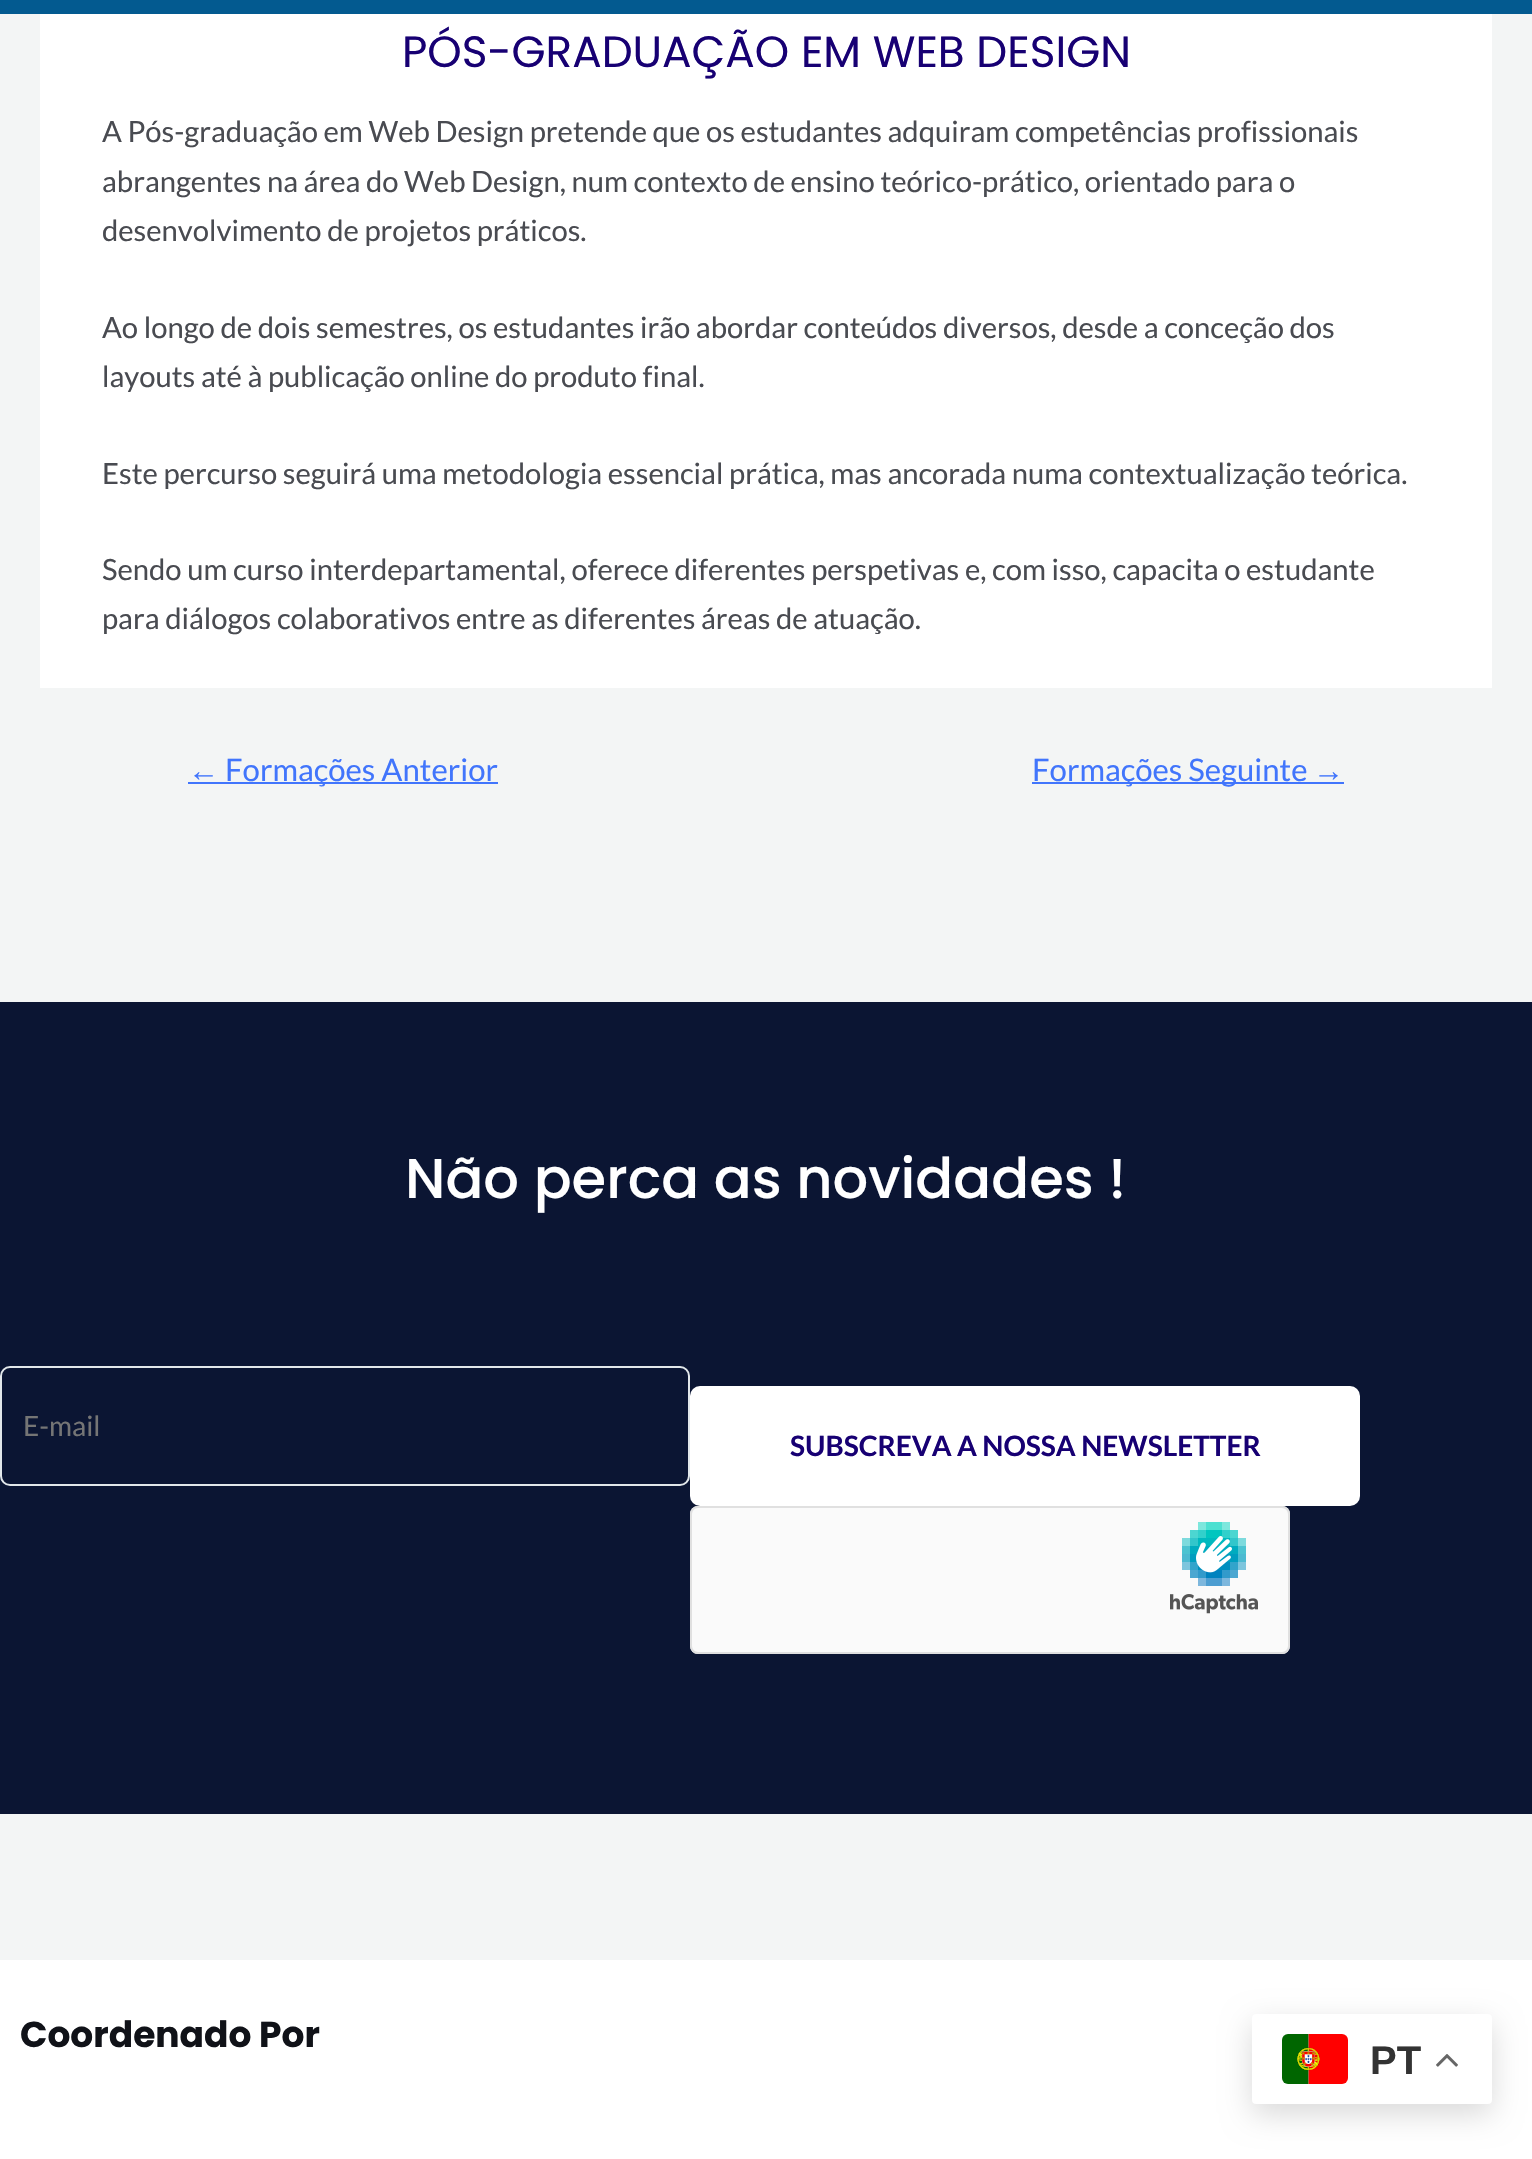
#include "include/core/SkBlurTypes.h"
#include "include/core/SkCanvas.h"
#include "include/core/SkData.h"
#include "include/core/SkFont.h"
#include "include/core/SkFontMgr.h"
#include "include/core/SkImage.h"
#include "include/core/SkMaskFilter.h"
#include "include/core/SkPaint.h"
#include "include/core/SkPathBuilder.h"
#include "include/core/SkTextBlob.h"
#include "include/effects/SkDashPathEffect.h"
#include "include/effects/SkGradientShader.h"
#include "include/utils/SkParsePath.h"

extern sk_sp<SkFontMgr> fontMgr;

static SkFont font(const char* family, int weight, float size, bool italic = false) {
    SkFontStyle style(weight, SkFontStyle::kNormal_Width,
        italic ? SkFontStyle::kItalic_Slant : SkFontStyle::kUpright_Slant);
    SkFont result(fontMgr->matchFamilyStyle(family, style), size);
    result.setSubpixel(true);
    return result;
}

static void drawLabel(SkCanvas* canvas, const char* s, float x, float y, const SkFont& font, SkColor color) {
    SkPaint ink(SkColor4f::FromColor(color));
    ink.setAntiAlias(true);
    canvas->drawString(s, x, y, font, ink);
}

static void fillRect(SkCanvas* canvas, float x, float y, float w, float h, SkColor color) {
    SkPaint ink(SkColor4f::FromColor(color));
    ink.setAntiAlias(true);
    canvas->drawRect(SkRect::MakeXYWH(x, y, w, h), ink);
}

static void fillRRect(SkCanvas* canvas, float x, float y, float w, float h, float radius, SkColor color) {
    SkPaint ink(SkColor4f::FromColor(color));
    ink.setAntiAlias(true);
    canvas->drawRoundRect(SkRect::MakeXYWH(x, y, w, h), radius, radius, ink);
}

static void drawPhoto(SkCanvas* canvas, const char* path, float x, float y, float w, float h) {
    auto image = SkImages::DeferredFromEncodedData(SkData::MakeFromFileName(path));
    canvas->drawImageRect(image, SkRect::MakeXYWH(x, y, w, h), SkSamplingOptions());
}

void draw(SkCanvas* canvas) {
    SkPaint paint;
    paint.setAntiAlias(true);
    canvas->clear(0xFFF3F5F5);
    fillRect(canvas, 0, 0, 1532, 14, 0xFF035A90);
    fillRect(canvas, 40, 14, 1452, 674, 0xFFFFFFFF);
    SkFont font1 = font("Poppins", 400, 43.75f);
    drawLabel(canvas, "PÓS-GRADUAÇÃO EM WEB DESIGN", 402, 67, font1, 0xFF170073);
    SkFont font2 = font("Lato", 400, 29.2f);
    drawLabel(canvas, "A Pós-graduação em Web Design pretende que os estudantes adquiram competências profissionais", 102, 142, font2, 0xFF494B51);
    drawLabel(canvas, "abrangentes na área do Web Design, num contexto de ensino teórico-prático, orientado para o", 102, 192, font2, 0xFF494B51);
    drawLabel(canvas, "desenvolvimento de projetos práticos.", 102, 241, font2, 0xFF494B51);
    drawLabel(canvas, "Ao longo de dois semestres, os estudantes irão abordar conteúdos diversos, desde a conceção dos", 102, 338, font2, 0xFF494B51);
    drawLabel(canvas, "layouts até à publicação online do produto final.", 102, 387, font2, 0xFF494B51);
    drawLabel(canvas, "Este percurso seguirá uma metodologia essencial prática, mas ancorada numa contextualização teórica.", 102, 484, font2, 0xFF494B51);
    drawLabel(canvas, "Sendo um curso interdepartamental, oferece diferentes perspetivas e, com isso, capacita o estudante", 102, 580, font2, 0xFF494B51);
    drawLabel(canvas, "para diálogos colaborativos entre as diferentes áreas de atuação.", 102, 629, font2, 0xFF494B51);
    SkFont font3 = font("Liberation Sans", 400, 31.1f);
    drawLabel(canvas, "←", 188, 781, font3, 0xFF4175FC);
    fillRect(canvas, 188, 782, 310, 2, 0xFF4175FC);
    SkFont font4 = font("Lato", 400, 31.1f);
    drawLabel(canvas, "Formações Anterior", 225, 781, font4, 0xFF4175FC);
    fillRect(canvas, 1032, 782, 312, 2, 0xFF4175FC);
    drawLabel(canvas, "Formações Seguinte", 1032, 781, font4, 0xFF4175FC);
    drawLabel(canvas, "→", 1313, 781, font3, 0xFF4175FC);
    fillRect(canvas, 0, 1002, 1532, 812, 0xFF0B1533);
    SkFont font5 = font("Poppins", 500, 56);
    drawLabel(canvas, "Não perca as novidades !", 405, 1198, font5, 0xFFFFFFFF);
    paint.setStroke(true);
    paint.setStrokeWidth(2);
    paint.setColor(0xFFE2E7EA);
    canvas->drawRoundRect(SkRect::MakeXYWH(1, 1367, 688, 118), 9, 9, paint);
    SkFont font6 = font("Lato", 400, 28);
    drawLabel(canvas, "E-mail", 23, 1436, font6, 0xFF757575);
    fillRRect(canvas, 690, 1386, 670, 120, 10, 0xFFFFFFFF);
    SkFont font7 = font("Lato", 700, 28);
    drawLabel(canvas, "SUBSCREVA A NOSSA NEWSLETTER", 790, 1456, font7, 0xFF170073);
    fillRRect(canvas, 690, 1506, 600, 148, 8, 0xFFFAFAFA);
    drawPhoto(canvas, "assets/img1.png", 1170, 1522, 88, 92);
    paint.setColor(0xFFE0E0E0);
    canvas->drawRoundRect(SkRect::MakeXYWH(691, 1507, 598, 146), 7, 7, paint);
    fillRect(canvas, 0, 1960, 1532, 199, 0xFFFFFFFF);
    SkFont font8 = font("Poppins", 700, 36);
    drawLabel(canvas, "Coordenado Por", 20, 2047, font8, 0xFF101218);
    paint.setStroke(false);
    paint.setColor(0x26000000);
    paint.setMaskFilter(SkMaskFilter::MakeBlur(kNormal_SkBlurStyle, 15));
    canvas->drawRoundRect(SkRect::MakeXYWH(1252, 2024, 240, 90), 4, 4, paint);
    paint.setMaskFilter(nullptr);
    fillRRect(canvas, 1252, 2014, 240, 90, 4, 0xFFFFFFFF);
    drawPhoto(canvas, "assets/img2.png", 1282, 2034, 66, 50);
    SkFont font9 = font("Liberation Sans", 700, 40);
    drawLabel(canvas, "PT", 1370, 2074, font9, 0xFF333333);
    drawPhoto(canvas, "assets/img3.png", 1436, 2054, 22, 13);
}
